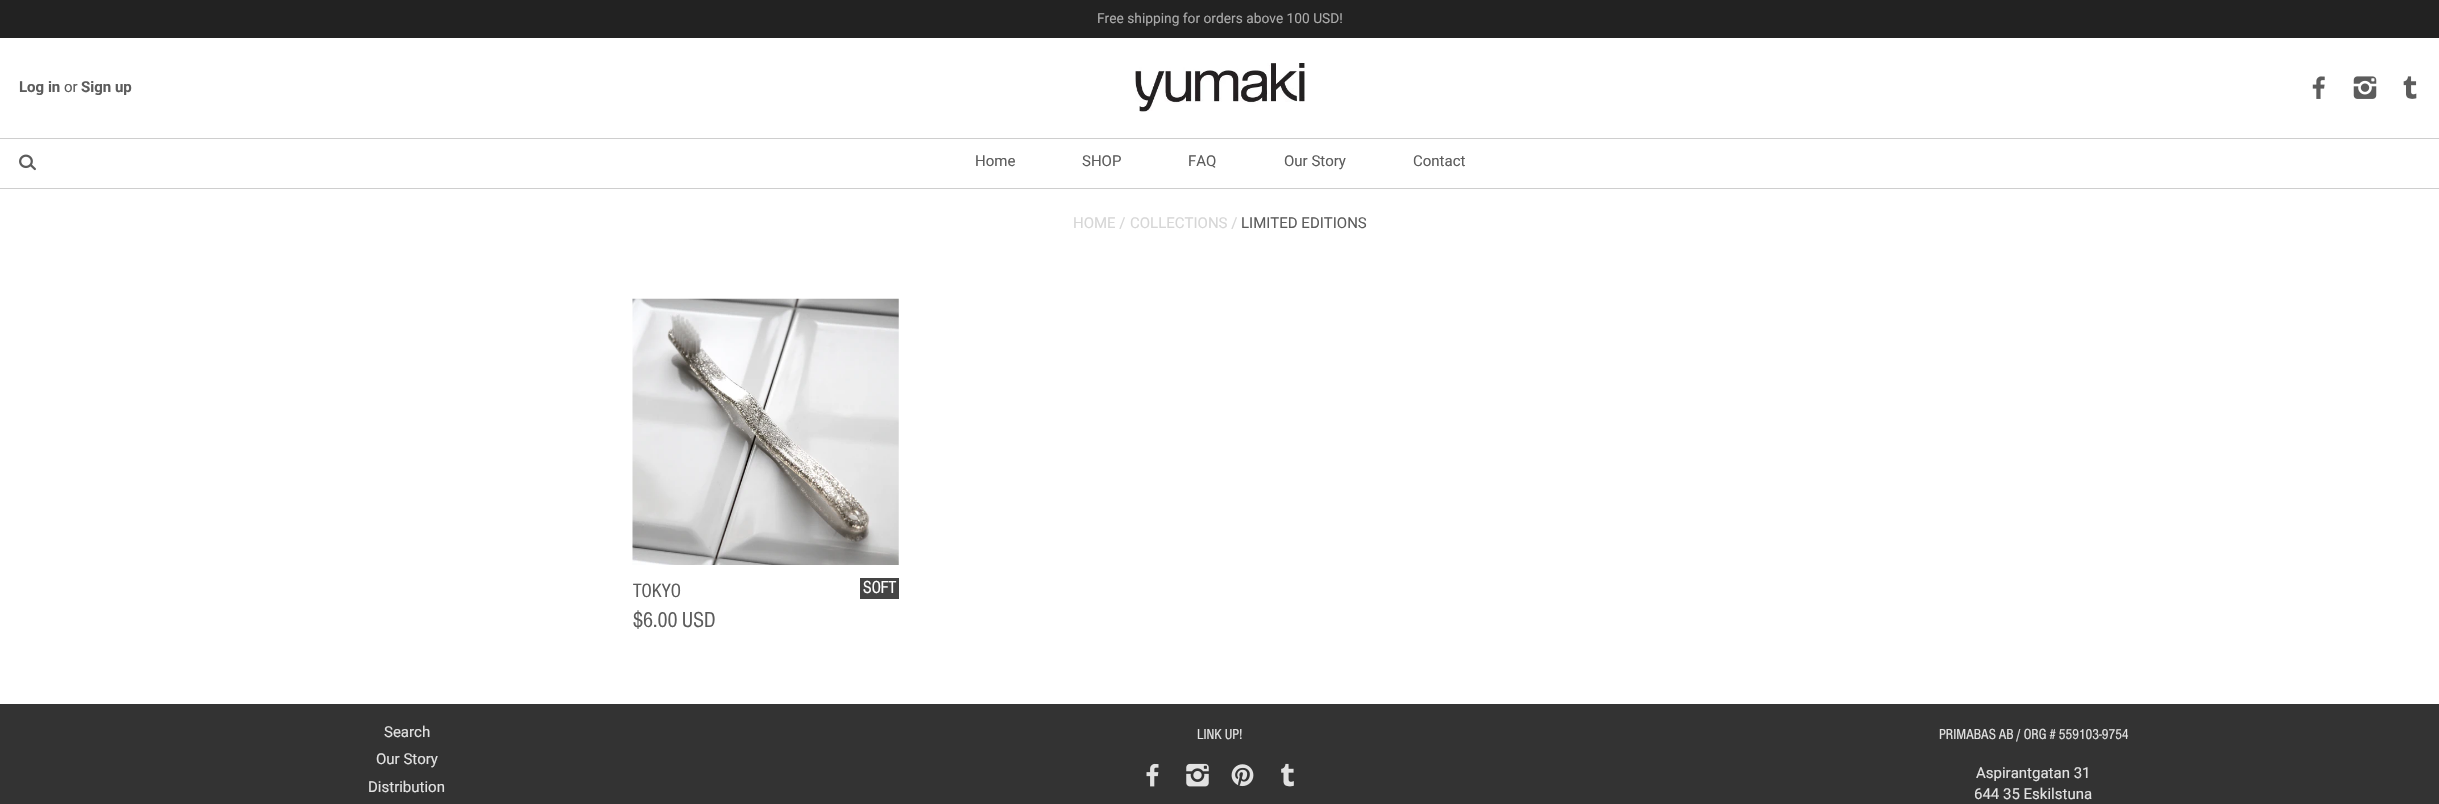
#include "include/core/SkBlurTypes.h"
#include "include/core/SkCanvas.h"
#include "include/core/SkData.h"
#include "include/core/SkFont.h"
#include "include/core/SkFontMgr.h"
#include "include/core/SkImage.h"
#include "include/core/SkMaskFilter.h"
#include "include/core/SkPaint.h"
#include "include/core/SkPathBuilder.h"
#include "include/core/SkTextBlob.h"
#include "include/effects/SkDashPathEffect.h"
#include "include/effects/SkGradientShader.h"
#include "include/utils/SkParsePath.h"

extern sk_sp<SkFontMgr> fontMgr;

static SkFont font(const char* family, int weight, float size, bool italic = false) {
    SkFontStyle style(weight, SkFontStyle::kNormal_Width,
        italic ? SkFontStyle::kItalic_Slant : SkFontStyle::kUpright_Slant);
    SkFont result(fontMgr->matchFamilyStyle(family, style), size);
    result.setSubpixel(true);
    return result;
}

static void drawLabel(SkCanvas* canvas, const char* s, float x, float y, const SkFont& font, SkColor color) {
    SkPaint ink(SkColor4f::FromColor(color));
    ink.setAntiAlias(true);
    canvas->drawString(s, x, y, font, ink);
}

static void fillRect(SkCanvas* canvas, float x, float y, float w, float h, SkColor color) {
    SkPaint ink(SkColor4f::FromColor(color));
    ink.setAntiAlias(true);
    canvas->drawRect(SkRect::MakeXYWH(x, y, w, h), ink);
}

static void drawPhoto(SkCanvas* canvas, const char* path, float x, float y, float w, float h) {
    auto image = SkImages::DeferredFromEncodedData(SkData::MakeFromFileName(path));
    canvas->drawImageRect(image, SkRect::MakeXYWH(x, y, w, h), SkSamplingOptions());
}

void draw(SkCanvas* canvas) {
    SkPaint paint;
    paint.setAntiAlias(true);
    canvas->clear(0xFFFFFFFF);
    fillRect(canvas, 0, 0, 2439, 38, 0xFF222222);
    SkFont font1 = font("Roboto", 400, 13.75f);
    drawLabel(canvas, "Free shipping for orders above 100 USD!", 1097, 23, font1, 0xFFAAAAAA);
    SkFont font2 = font("Roboto", 700, 15);
    drawLabel(canvas, "Log in", 19, 92, font2, 0xFF5C5C5C);
    SkFont font3 = font("Roboto", 400, 15);
    drawLabel(canvas, "or", 64, 92, font3, 0xFF5C5C5C);
    drawLabel(canvas, "Sign up", 81, 92, font2, 0xFF5C5C5C);
    drawPhoto(canvas, "assets/img1.png", 1135, 63, 170, 50);
    drawPhoto(canvas, "assets/img2.png", 2312, 76, 13, 23);
    drawPhoto(canvas, "assets/img3.png", 2353, 76, 24, 23);
    drawPhoto(canvas, "assets/img4.png", 2403, 76, 14, 23);
    fillRect(canvas, 0, 138, 2439, 1, 0xFFCECECE);
    fillRect(canvas, 0, 188, 2439, 1, 0xFFCECECE);
    drawPhoto(canvas, "assets/img5.png", 19, 154, 17, 17);
    drawLabel(canvas, "Home", 975, 166, font3, 0xFF5C5C5C);
    drawLabel(canvas, "SHOP", 1082, 166, font3, 0xFF5C5C5C);
    drawLabel(canvas, "FAQ", 1188, 166, font3, 0xFF5C5C5C);
    drawLabel(canvas, "Our Story", 1284, 166, font3, 0xFF5C5C5C);
    drawLabel(canvas, "Contact", 1413, 166, font3, 0xFF5C5C5C);
    drawLabel(canvas, "HOME /", 1073, 228, font3, 0xFFD6D6D6);
    drawLabel(canvas, "COLLECTIONS /", 1130, 228, font3, 0xFFD6D6D6);
    drawLabel(canvas, "LIMITED EDITIONS", 1241, 228, font3, 0xFF5C5C5C);
    drawPhoto(canvas, "assets/img6.png", 632, 298, 267, 267);
    SkFont font4 = font("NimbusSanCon", 400, 20);
    drawLabel(canvas, "TOKYO", 633, 597, font4, 0xFF5C5C5C);
    fillRect(canvas, 860, 578, 39, 21, 0xFF444444);
    SkFont font5 = font("NimbusSanCon", 400, 18);
    drawLabel(canvas, "SOFT", 863, 593, font5, 0xFFFFFFFF);
    SkFont font6 = font("NimbusSanCon", 400, 22.5f);
    drawLabel(canvas, "$6.00 USD", 633, 627, font6, 0xFF5C5C5C);
    fillRect(canvas, 0, 704, 2439, 100, 0xFF333333);
    drawLabel(canvas, "Search", 384, 737, font3, 0xFFE2E2E2);
    drawLabel(canvas, "Our Story", 376, 764, font3, 0xFFE2E2E2);
    drawLabel(canvas, "Distribution", 368, 792, font3, 0xFFE2E2E2);
    SkFont font7 = font("NimbusSanCon", 400, 15);
    drawLabel(canvas, "LINK UP!", 1197, 739, font7, 0xFFE2E2E2);
    drawPhoto(canvas, "assets/img7.png", 1146, 763, 13, 24);
    drawPhoto(canvas, "assets/img8.png", 1186, 763, 23, 24);
    drawPhoto(canvas, "assets/img9.png", 1231, 764, 23, 23);
    drawPhoto(canvas, "assets/img10.png", 1281, 763, 13, 24);
    drawLabel(canvas, "PRIMABAS AB / ORG # 559103-9754", 1939, 739, font7, 0xFFE2E2E2);
    drawLabel(canvas, "Aspirantgatan 31", 1976, 778, font3, 0xFFE2E2E2);
    drawLabel(canvas, "644 35 Eskilstuna", 1974, 799, font3, 0xFFE2E2E2);
}
